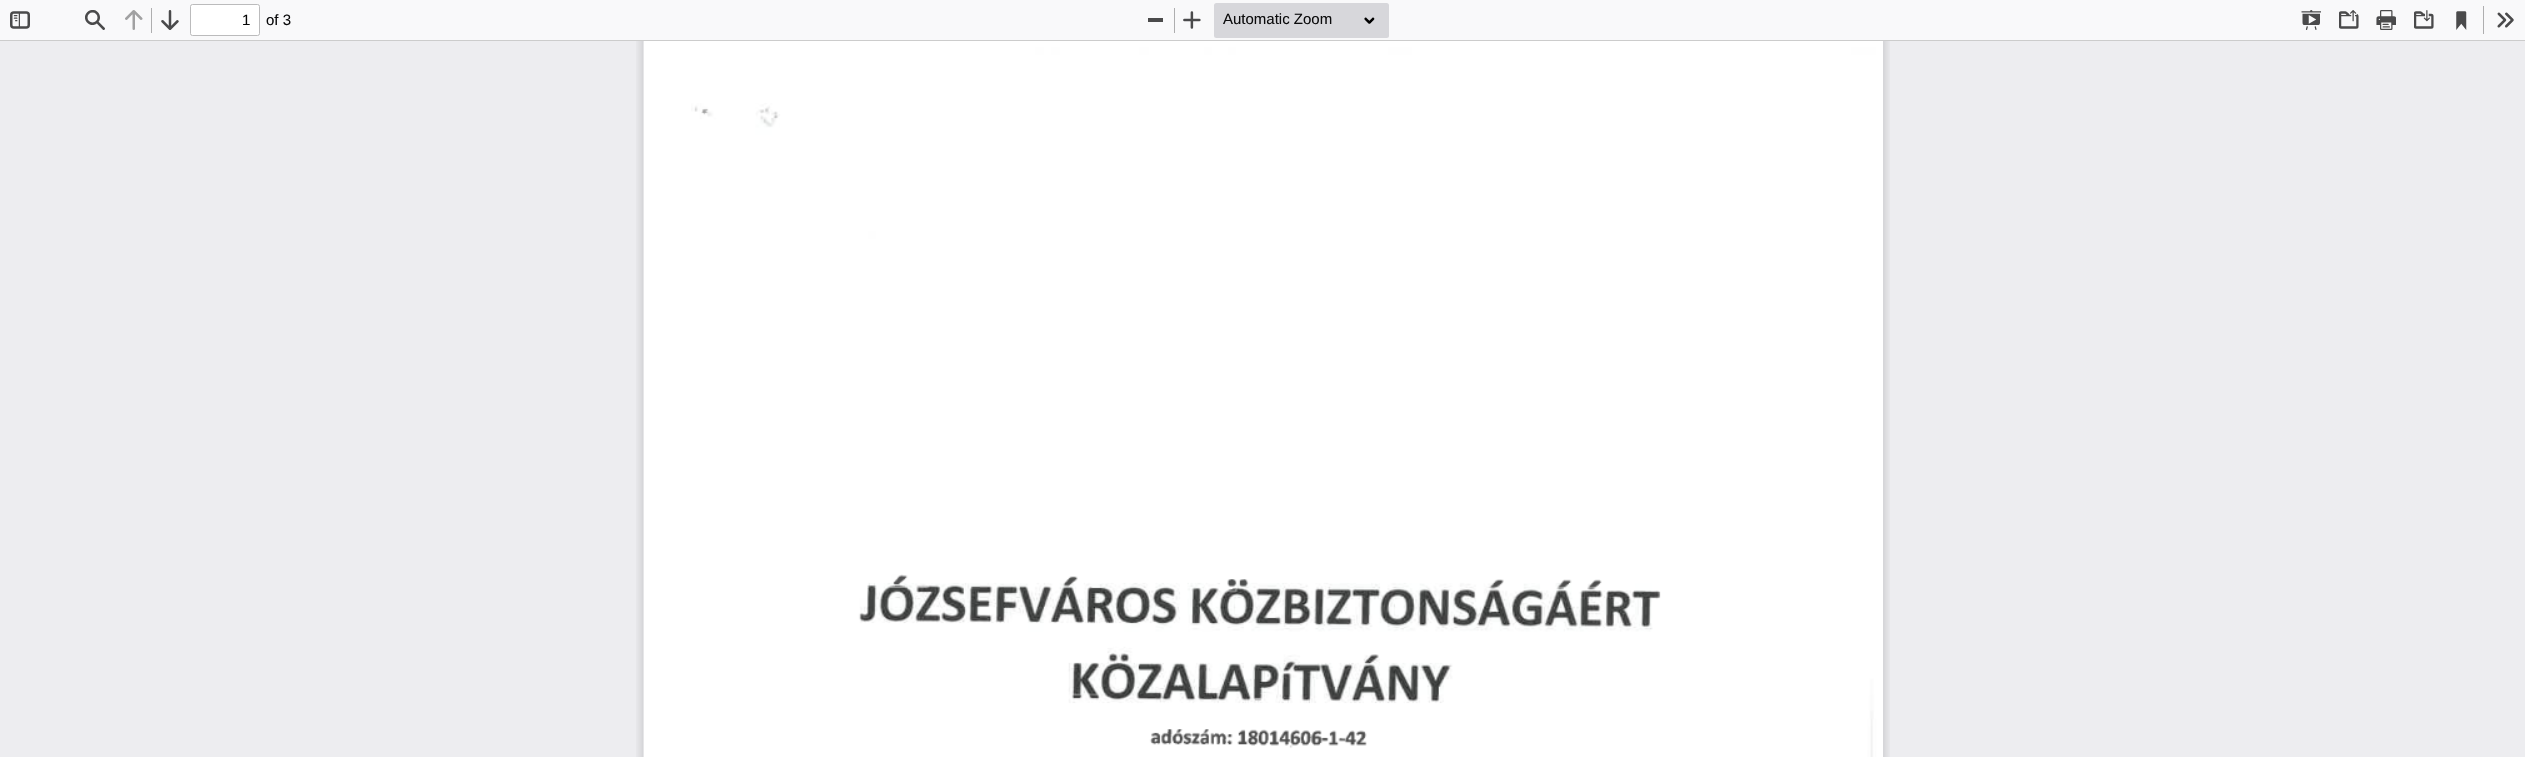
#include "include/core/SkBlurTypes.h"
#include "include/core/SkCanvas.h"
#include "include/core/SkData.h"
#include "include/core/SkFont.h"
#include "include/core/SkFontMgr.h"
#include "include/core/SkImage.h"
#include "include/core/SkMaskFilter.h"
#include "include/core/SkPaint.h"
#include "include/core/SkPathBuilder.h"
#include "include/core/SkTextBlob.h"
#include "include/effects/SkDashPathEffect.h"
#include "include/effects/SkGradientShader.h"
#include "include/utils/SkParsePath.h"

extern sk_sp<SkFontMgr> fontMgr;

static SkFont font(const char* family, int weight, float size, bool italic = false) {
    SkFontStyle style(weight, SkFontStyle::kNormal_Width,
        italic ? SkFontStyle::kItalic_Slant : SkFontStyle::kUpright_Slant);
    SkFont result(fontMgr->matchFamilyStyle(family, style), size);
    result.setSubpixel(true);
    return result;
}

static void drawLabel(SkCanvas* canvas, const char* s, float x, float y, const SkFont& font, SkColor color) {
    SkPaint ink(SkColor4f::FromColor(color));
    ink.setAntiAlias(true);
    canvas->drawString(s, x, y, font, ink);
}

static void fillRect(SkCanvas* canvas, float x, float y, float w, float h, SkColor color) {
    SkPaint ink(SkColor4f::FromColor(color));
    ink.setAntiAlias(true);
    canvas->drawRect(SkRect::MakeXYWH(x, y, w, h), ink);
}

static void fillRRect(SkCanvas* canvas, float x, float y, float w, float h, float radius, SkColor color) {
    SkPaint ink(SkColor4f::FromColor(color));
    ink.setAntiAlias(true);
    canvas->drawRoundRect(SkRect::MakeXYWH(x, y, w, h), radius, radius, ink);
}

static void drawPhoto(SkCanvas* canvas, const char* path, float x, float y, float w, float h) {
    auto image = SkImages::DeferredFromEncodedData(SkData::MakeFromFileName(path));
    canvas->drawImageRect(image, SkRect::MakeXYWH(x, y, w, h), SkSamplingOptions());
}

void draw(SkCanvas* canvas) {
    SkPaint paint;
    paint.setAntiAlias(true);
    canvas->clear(0xFFEDEDF0);
    fillRect(canvas, 0, 40, 2525, 1, 0xFFCCCCCC);
    fillRect(canvas, 0, 0, 2525, 40, 0xFFF9F9FA);
    drawPhoto(canvas, "assets/img1.png", 10, 11, 20, 18);
    drawPhoto(canvas, "assets/img2.png", 85, 10, 20, 20);
    drawPhoto(canvas, "assets/img3.png", 125, 10, 18, 20);
    fillRect(canvas, 151, 8, 1, 25, 0xFFAEAEAF);
    drawPhoto(canvas, "assets/img4.png", 161, 10, 18, 20);
    fillRRect(canvas, 191, 5, 68, 30, 1, 0xFFFFFFFF);
    paint.setStroke(true);
    paint.setStrokeWidth(1);
    paint.setColor(0xFFBBBBBC);
    canvas->drawRoundRect(SkRect::MakeXYWH(190.5f, 4.5f, 69, 31), 2, 2, paint);
    SkFont font1 = font("Liberation Sans", 400, 15);
    drawLabel(canvas, "1", 242, 25, font1, 0xFF060606);
    drawLabel(canvas, "of 3", 266, 25, font1, 0xFF0C0C0D);
    fillRect(canvas, 1148, 18, 15, 4, 0xFF4B4B4B);
    fillRect(canvas, 1174, 8, 1, 25, 0xFFAEAEAF);
    drawPhoto(canvas, "assets/img5.png", 1183, 11, 18, 18);
    fillRRect(canvas, 1214, 3, 175, 35, 2.5f, 0xFFD7D7DB);
    drawLabel(canvas, "Automatic Zoom", 1223, 24, font1, 0xFF0C0C0D);
    drawPhoto(canvas, "assets/img6.png", 1364, 17, 11, 7);
    drawPhoto(canvas, "assets/img7.png", 2301, 10, 20, 20);
    drawPhoto(canvas, "assets/img8.png", 2339, 10, 20, 19);
    drawPhoto(canvas, "assets/img9.png", 2376, 10, 20, 20);
    drawPhoto(canvas, "assets/img10.png", 2414, 10, 20, 19);
    drawPhoto(canvas, "assets/img11.png", 2456, 11, 11, 19);
    fillRect(canvas, 2483, 6, 1, 28, 0xFFAEAEAF);
    drawPhoto(canvas, "assets/img12.png", 2497, 12, 17, 16);
    drawPhoto(canvas, "assets/img13.png", 636, 41, 1254, 716);
    drawPhoto(canvas, "assets/img14.png", 643, 41, 1240, 716);
}
